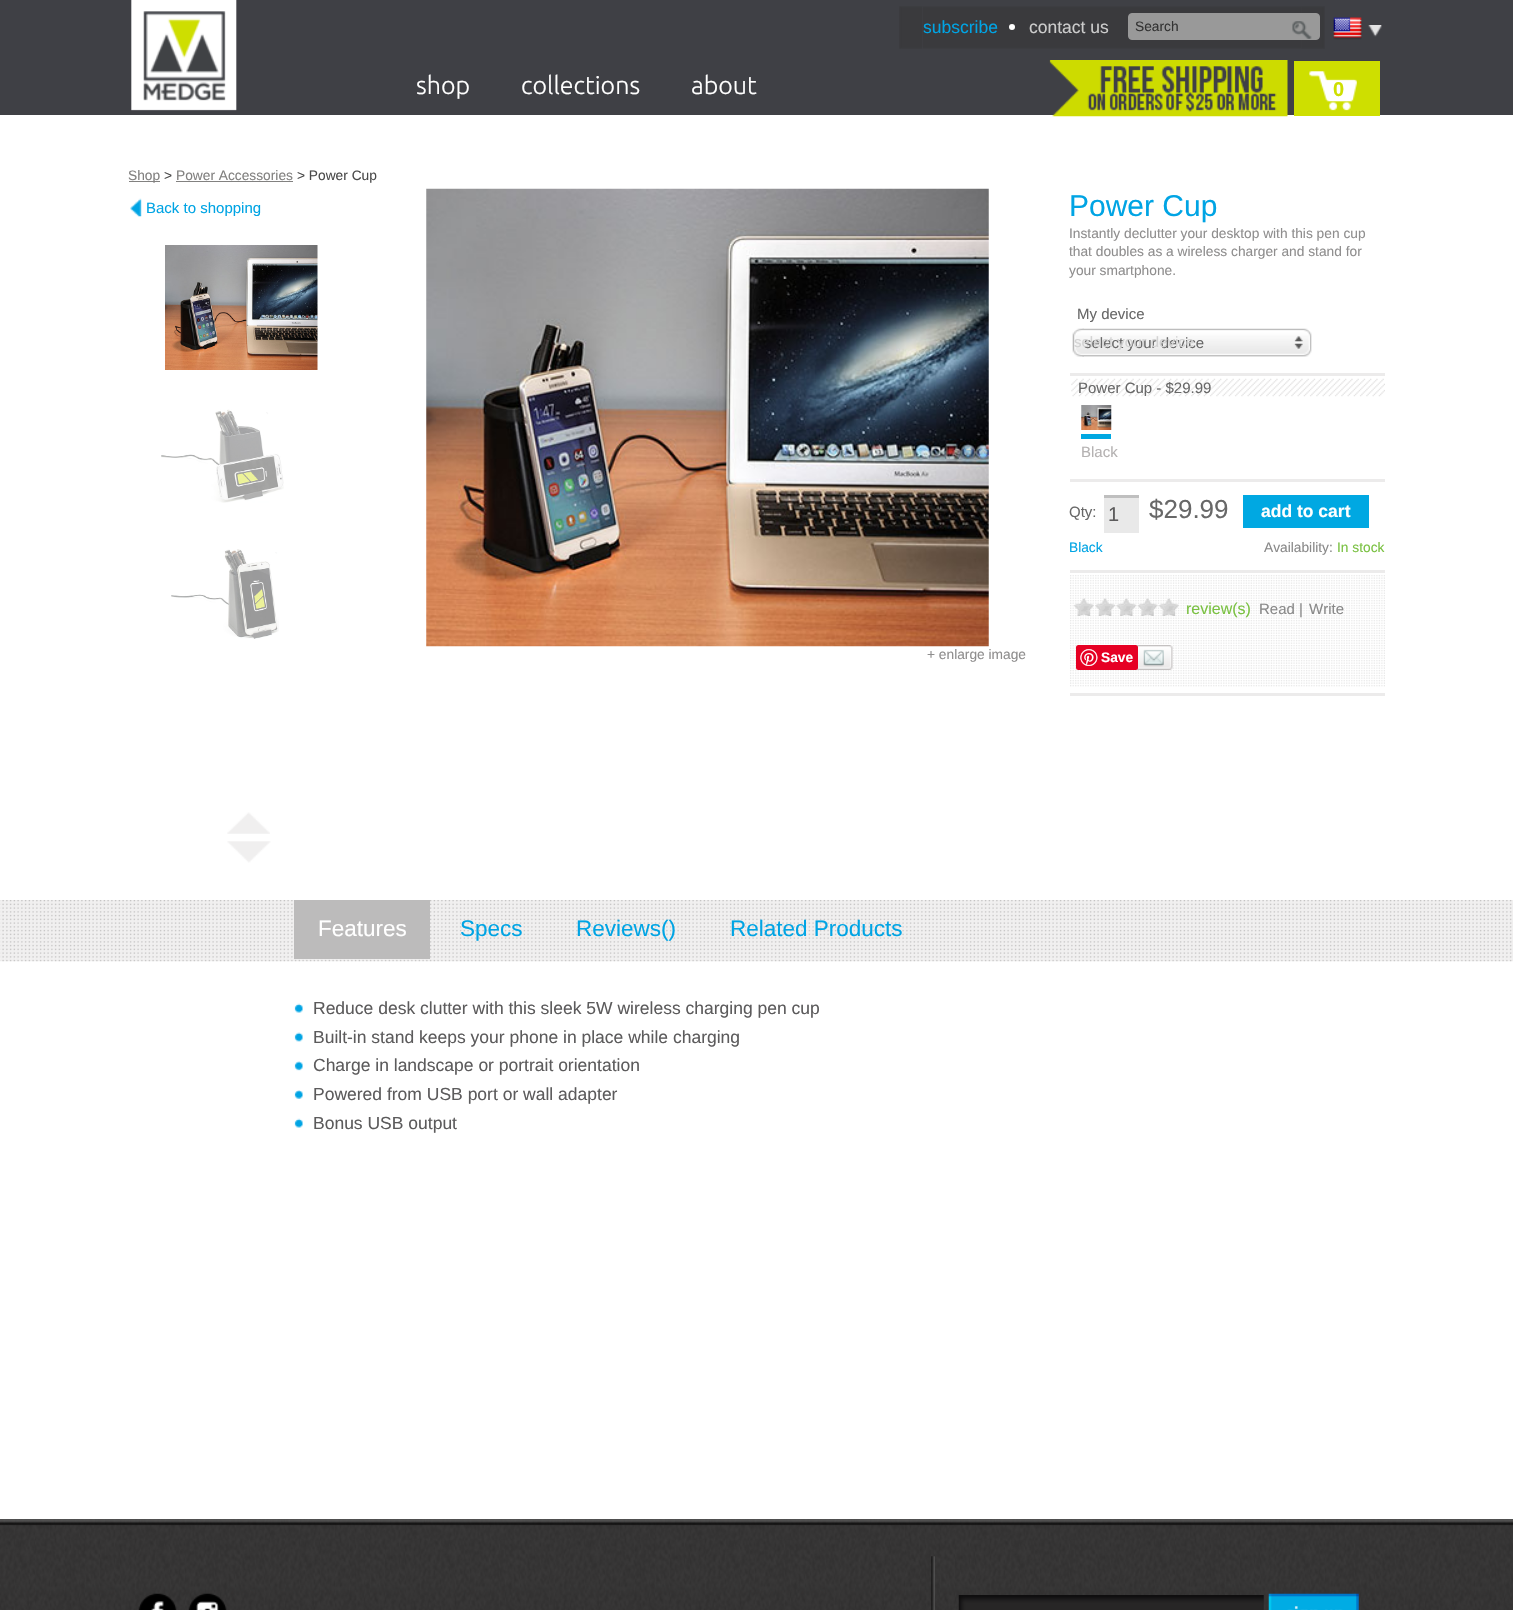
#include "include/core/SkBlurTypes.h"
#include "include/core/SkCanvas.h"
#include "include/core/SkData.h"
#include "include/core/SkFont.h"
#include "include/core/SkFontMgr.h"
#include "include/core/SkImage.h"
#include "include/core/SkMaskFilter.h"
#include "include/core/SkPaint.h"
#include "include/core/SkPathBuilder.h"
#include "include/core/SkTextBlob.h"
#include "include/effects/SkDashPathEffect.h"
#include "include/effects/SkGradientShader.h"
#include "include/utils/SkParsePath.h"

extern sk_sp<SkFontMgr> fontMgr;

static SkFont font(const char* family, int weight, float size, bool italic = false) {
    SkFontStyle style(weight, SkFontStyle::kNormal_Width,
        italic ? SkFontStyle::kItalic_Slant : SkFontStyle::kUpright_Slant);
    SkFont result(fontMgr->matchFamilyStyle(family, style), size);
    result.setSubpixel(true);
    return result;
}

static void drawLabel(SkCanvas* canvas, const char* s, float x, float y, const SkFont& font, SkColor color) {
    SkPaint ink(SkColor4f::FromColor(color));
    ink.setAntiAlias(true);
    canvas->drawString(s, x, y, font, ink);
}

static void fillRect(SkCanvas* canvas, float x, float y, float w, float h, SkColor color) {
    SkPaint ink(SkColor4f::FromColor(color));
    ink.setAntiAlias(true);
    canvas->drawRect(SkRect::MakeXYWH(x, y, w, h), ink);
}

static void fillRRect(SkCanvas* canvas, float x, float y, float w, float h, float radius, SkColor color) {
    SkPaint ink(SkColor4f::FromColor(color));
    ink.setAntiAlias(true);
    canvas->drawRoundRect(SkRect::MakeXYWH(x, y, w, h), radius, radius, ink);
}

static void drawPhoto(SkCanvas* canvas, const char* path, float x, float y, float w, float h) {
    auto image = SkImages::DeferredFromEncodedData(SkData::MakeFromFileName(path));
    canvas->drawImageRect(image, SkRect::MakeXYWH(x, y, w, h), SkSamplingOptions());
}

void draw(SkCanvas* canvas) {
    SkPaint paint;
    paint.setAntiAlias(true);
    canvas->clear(0xFFFFFFFF);
    fillRect(canvas, 0, 0, 1513, 115, 0xFF3F4045);
    drawPhoto(canvas, "assets/img1.png", 131, 0, 106, 111);
    drawPhoto(canvas, "assets/img2.png", 899, 6, 426, 43);
    SkFont font1 = font("Liberation Sans", 400, 17.5f);
    drawLabel(canvas, "subscribe", 923, 33, font1, 0xFF00A4E4);
    paint.setColor(0xFFFFFFFF);
    canvas->drawCircle(1012, 27, 3, paint);
    drawLabel(canvas, "contact us", 1029, 33, font1, 0xFFCCCCCC);
    paint.setColor(0xFF999999);
    canvas->drawRoundRect(SkRect::MakeXYWH(1128.5f, 13.5f, 191, 26), 3.5f, 3.5f, paint);
    paint.setStroke(true);
    paint.setStrokeWidth(1);
    canvas->drawRoundRect(SkRect::MakeXYWH(1128.5f, 13.5f, 191, 26), 3.5f, 3.5f, paint);
    SkFont font2 = font("Liberation Sans", 400, 13.75f);
    drawLabel(canvas, "Search", 1135, 31, font2, 0xFF333333);
    drawPhoto(canvas, "assets/img3.png", 1292, 21, 20, 18);
    drawPhoto(canvas, "assets/img4.png", 1333, 17, 29, 23);
    drawPhoto(canvas, "assets/img5.png", 1368, 25, 14, 12);
    SkFont font3 = font("Ubuntu", 300, 25);
    drawLabel(canvas, "shop", 416, 94, font3, 0xFFFFFFFF);
    drawLabel(canvas, "collections", 521, 94, font3, 0xFFFFFFFF);
    drawLabel(canvas, "about", 691, 94, font3, 0xFFFFFFFF);
    drawPhoto(canvas, "assets/img6.png", 1049, 60, 239, 57);
    fillRect(canvas, 1294, 61, 86, 55, 0xFFCEDF00);
    drawPhoto(canvas, "assets/img7.png", 1309, 71, 48, 40);
    SkFont font4 = font("Liberation Sans", 700, 20);
    drawLabel(canvas, "0", 1333, 96, font4, 0xFFCEDF00);
    fillRect(canvas, 129, 181, 31, 1, 0xFF828180);
    drawLabel(canvas, "Shop", 128, 180, font2, 0xFF828180);
    drawLabel(canvas, ">", 164, 180, font2, 0xFF4A4A4A);
    drawLabel(canvas, "Power Accessories", 176, 180, font2, 0xFF828180);
    fillRect(canvas, 176, 181, 117, 1, 0xFF828180);
    drawLabel(canvas, "> Power Cup", 297, 180, font2, 0xFF4A4A4A);
    drawPhoto(canvas, "assets/img8.png", 130, 198, 12, 19);
    SkFont font5 = font("Liberation Sans", 400, 15);
    drawLabel(canvas, "Back to shopping", 146, 213, font5, 0xFF00A4E4);
    drawPhoto(canvas, "assets/img9.png", 165, 245, 153, 125);
    drawPhoto(canvas, "assets/img10.png", 161, 409, 123, 94);
    drawPhoto(canvas, "assets/img11.png", 171, 549, 108, 90);
    drawPhoto(canvas, "assets/img12.png", 227, 812, 43, 22);
    drawPhoto(canvas, "assets/img13.png", 227, 841, 44, 22);
    SkFont font6 = font("Liberation Sans", 400, 30);
    drawLabel(canvas, "Power Cup", 1069, 216, font6, 0xFF00A4E4);
    drawLabel(canvas, "Instantly declutter your desktop with this pen cup", 1069, 238, font2, 0xFF8F8E8E);
    drawLabel(canvas, "that doubles as a wireless charger and stand for", 1069, 256, font2, 0xFF8F8E8E);
    drawLabel(canvas, "your smartphone.", 1069, 275, font2, 0xFF8F8E8E);
    drawLabel(canvas, "My device", 1077, 319, font5, 0xFF686868);
    drawPhoto(canvas, "assets/img14.png", 1072, 328, 12, 29);
    drawPhoto(canvas, "assets/img15.png", 1082, 328, 230, 29);
    drawLabel(canvas, "select your device", 1084, 348, font5, 0xFF686868);
    drawLabel(canvas, "select your device", 1074, 347, font5, 0xFFD3D3D3);
    fillRect(canvas, 1070, 373, 315, 3, 0xFFECEBEB);
    fillRect(canvas, 1070, 479, 315, 3, 0xFFECEBEB);
    drawPhoto(canvas, "assets/img16.png", 1071, 378, 314, 19);
    drawLabel(canvas, "Power Cup - $29.99", 1078, 393, font5, 0xFF686868);
    drawPhoto(canvas, "assets/img17.png", 1081, 405, 31, 25);
    fillRect(canvas, 1081, 434, 30, 5, 0xFF00A8E2);
    drawLabel(canvas, "Black", 1081, 457, font5, 0xFFB5B2B2);
    drawLabel(canvas, "Qty:", 1069, 517, font5, 0xFF686868);
    fillRect(canvas, 1104, 498, 35, 35, 0xFFE9E9E9);
    fillRect(canvas, 1104, 495, 35, 3, 0xFFBFBFBF);
    SkFont font7 = font("Liberation Sans", 400, 20);
    drawLabel(canvas, "1", 1108, 521, font7, 0xFF5C5B5C);
    SkFont font8 = font("Liberation Sans", 400, 26);
    drawLabel(canvas, "$29.99", 1149, 518, font8, 0xFF686868);
    fillRect(canvas, 1243, 495, 126, 33, 0xFF00A8E2);
    SkFont font9 = font("Liberation Sans", 700, 17.5f);
    drawLabel(canvas, "add to cart", 1261, 517, font9, 0xFFFFFFFF);
    drawLabel(canvas, "Black", 1069, 552, font2, 0xFF00A4E4);
    drawLabel(canvas, "Availability:", 1264, 552, font2, 0xFF898989);
    drawLabel(canvas, "In stock", 1337, 552, font2, 0xFF7AC142);
    drawPhoto(canvas, "assets/img18.png", 1070, 575, 315, 112);
    fillRect(canvas, 1070, 570, 315, 3, 0xFFECEBEB);
    fillRect(canvas, 1070, 693, 315, 3, 0xFFECEBEB);
    drawPhoto(canvas, "assets/img19.png", 1074, 598, 20, 18);
    drawPhoto(canvas, "assets/img20.png", 1095, 598, 20, 18);
    drawPhoto(canvas, "assets/img21.png", 1116, 598, 21, 18);
    drawPhoto(canvas, "assets/img22.png", 1137, 598, 21, 18);
    drawPhoto(canvas, "assets/img23.png", 1159, 598, 20, 18);
    SkFont font10 = font("Liberation Sans", 400, 16);
    drawLabel(canvas, "review(s)", 1186, 614, font10, 0xFF7AC142);
    drawLabel(canvas, "Read |", 1259, 614, font5, 0xFF898989);
    drawLabel(canvas, "Write", 1309, 614, font5, 0xFF898989);
    drawPhoto(canvas, "assets/img25.png", 1135, 645, 38, 25);
    fillRRect(canvas, 1076, 645, 62, 25, 2.5f, 0xFFE60023);
    drawPhoto(canvas, "assets/img24.png", 1080, 649, 18, 17);
    SkFont font11 = font("Liberation Sans", 700, 13.75f);
    drawLabel(canvas, "Save", 1101, 662, font11, 0xFFFFFFFF);
    drawPhoto(canvas, "assets/img26.png", 426, 188, 563, 459);
    drawLabel(canvas, "+ enlarge image", 927, 659, font2, 0xFF8F8E8E);
    drawPhoto(canvas, "assets/img27.png", 0, 900, 1513, 62);
    fillRect(canvas, 294, 900, 136, 59, 0xFFBCBBBB);
    SkFont font12 = font("Liberation Sans", 400, 22.5f);
    drawLabel(canvas, "Features", 318, 936, font12, 0xFFFFFFFF);
    drawLabel(canvas, "Specs", 460, 936, font12, 0xFF00A4E4);
    drawLabel(canvas, "Reviews()", 576, 936, font12, 0xFF00A4E4);
    drawLabel(canvas, "Related Products", 730, 936, font12, 0xFF00A4E4);
    drawPhoto(canvas, "assets/img28.png", 294, 1003, 9, 10);
    drawLabel(canvas, "Reduce desk clutter with this sleek 5W wireless charging pen cup", 313, 1014, font1, 0xFF5C5B5C);
    drawPhoto(canvas, "assets/img29.png", 294, 1032, 9, 10);
    drawLabel(canvas, "Built-in stand keeps your phone in place while charging", 313, 1043, font1, 0xFF5C5B5C);
    drawPhoto(canvas, "assets/img30.png", 294, 1061, 9, 10);
    drawLabel(canvas, "Charge in landscape or portrait orientation", 313, 1071, font1, 0xFF5C5B5C);
    drawPhoto(canvas, "assets/img31.png", 294, 1090, 9, 9);
    drawLabel(canvas, "Powered from USB port or wall adapter", 313, 1100, font1, 0xFF5C5B5C);
    drawPhoto(canvas, "assets/img28.png", 294, 1118, 9, 10);
    drawLabel(canvas, "Bonus USB output", 313, 1129, font1, 0xFF5C5B5C);
    drawPhoto(canvas, "assets/img32.png", 0, 1519, 1513, 91);
    drawPhoto(canvas, "assets/img33.png", 931, 1556, 4, 54);
    drawPhoto(canvas, "assets/img34.png", 138, 1593, 39, 17);
    drawPhoto(canvas, "assets/img35.png", 188, 1593, 39, 17);
    drawPhoto(canvas, "assets/img36.png", 958, 1595, 306, 15);
    drawPhoto(canvas, "assets/img37.png", 1268, 1593, 91, 17);
}
